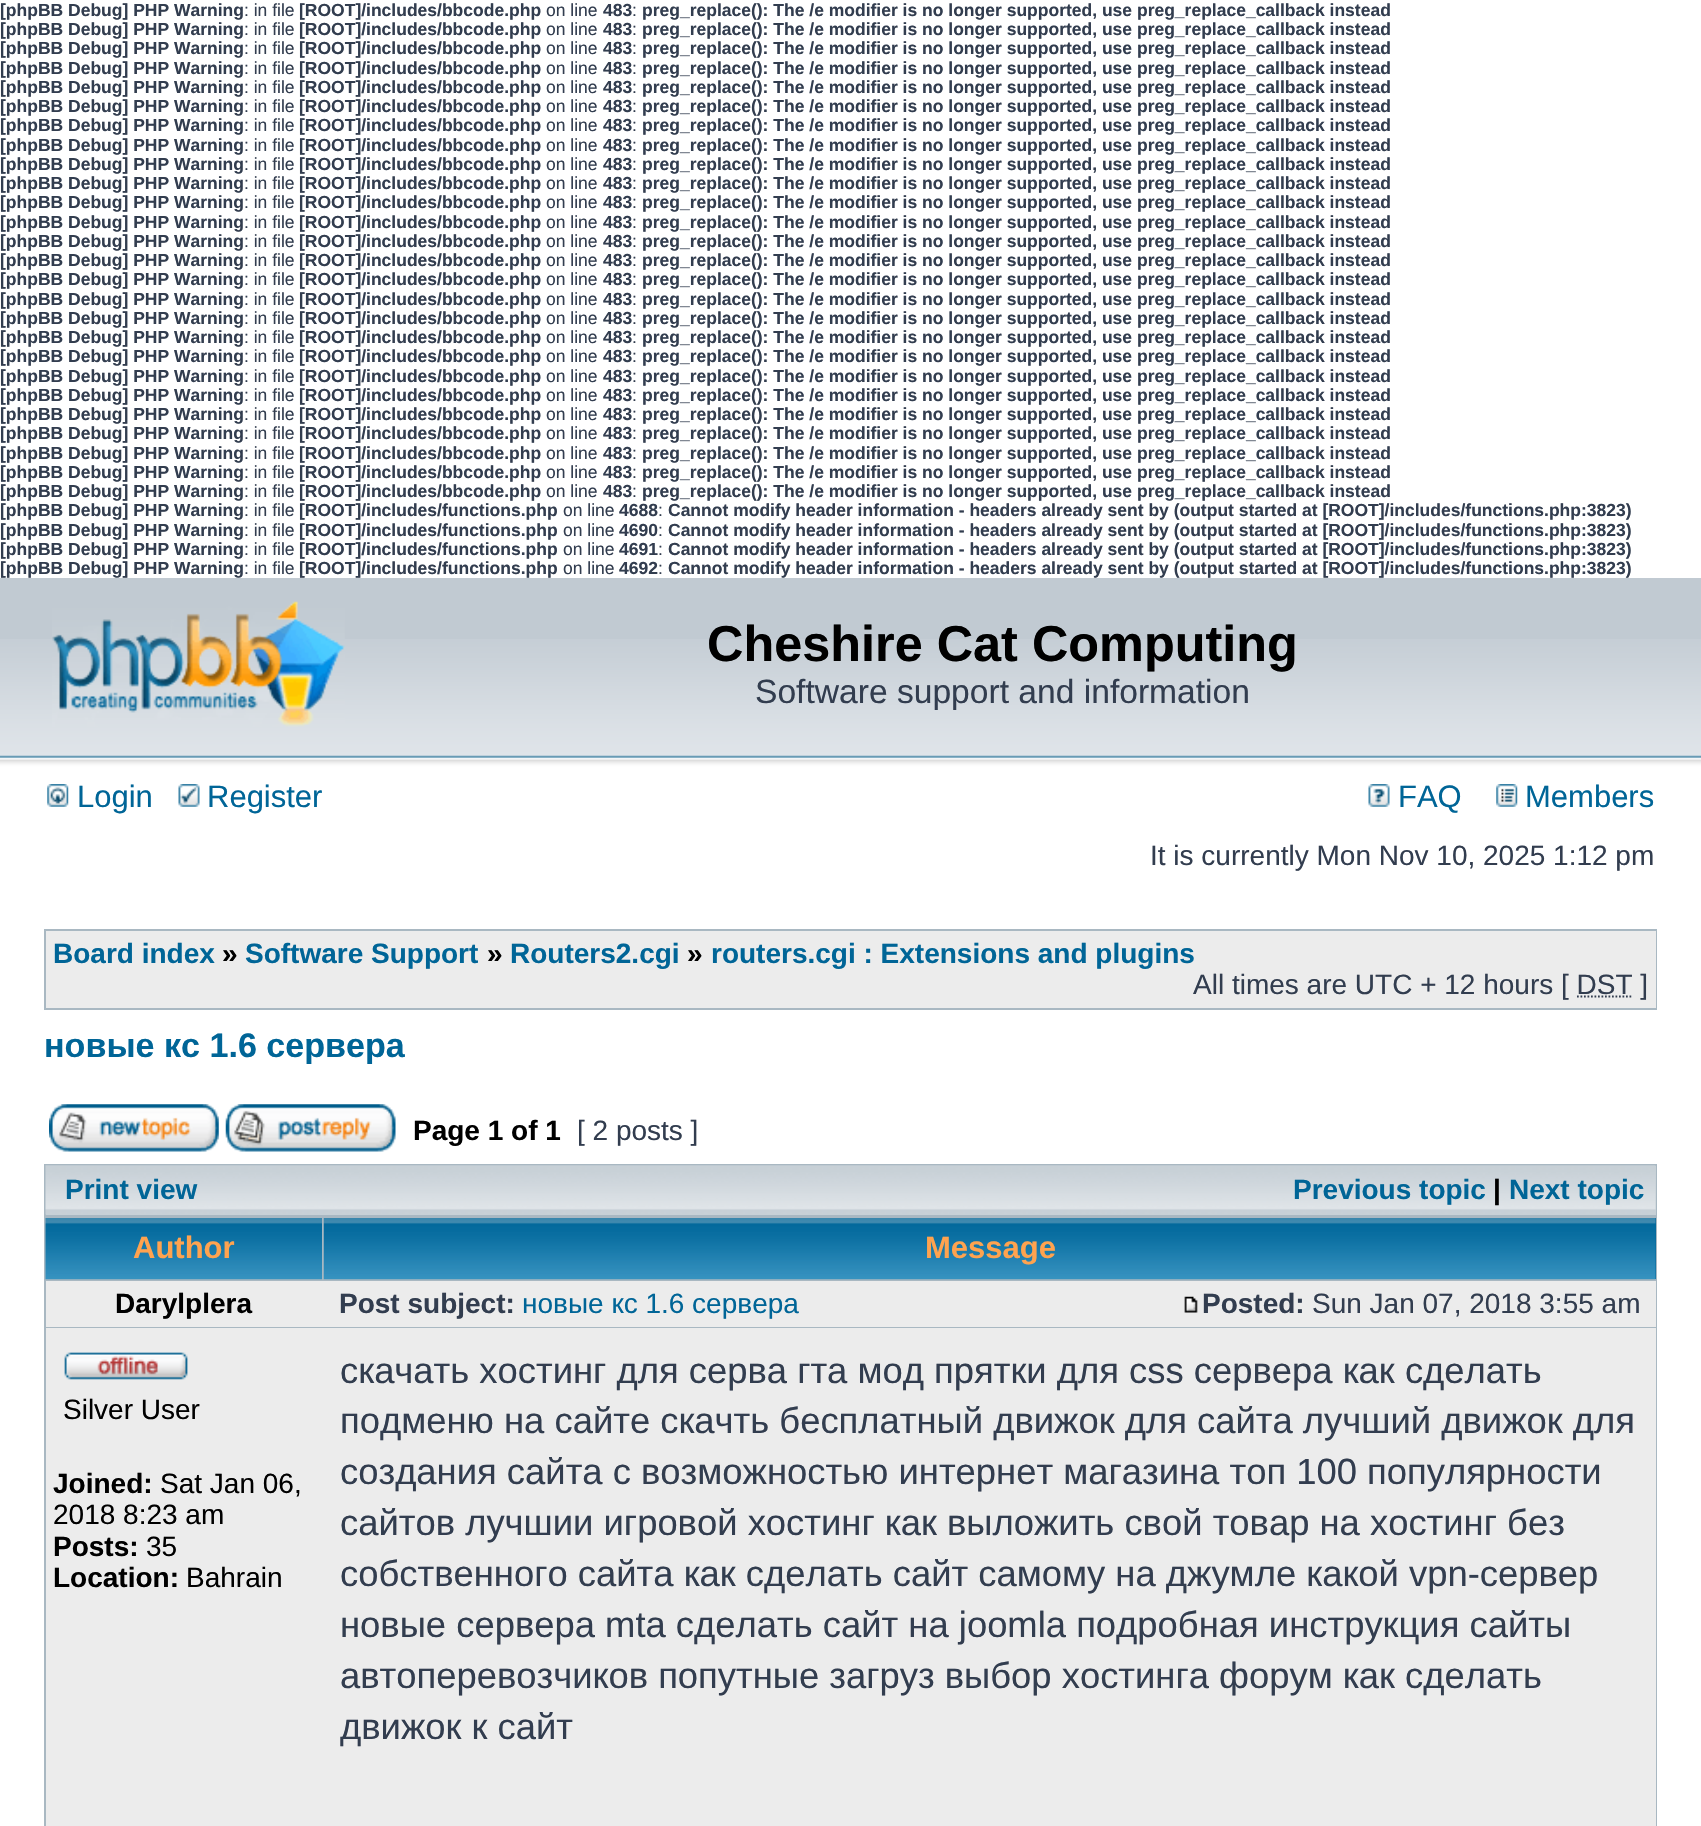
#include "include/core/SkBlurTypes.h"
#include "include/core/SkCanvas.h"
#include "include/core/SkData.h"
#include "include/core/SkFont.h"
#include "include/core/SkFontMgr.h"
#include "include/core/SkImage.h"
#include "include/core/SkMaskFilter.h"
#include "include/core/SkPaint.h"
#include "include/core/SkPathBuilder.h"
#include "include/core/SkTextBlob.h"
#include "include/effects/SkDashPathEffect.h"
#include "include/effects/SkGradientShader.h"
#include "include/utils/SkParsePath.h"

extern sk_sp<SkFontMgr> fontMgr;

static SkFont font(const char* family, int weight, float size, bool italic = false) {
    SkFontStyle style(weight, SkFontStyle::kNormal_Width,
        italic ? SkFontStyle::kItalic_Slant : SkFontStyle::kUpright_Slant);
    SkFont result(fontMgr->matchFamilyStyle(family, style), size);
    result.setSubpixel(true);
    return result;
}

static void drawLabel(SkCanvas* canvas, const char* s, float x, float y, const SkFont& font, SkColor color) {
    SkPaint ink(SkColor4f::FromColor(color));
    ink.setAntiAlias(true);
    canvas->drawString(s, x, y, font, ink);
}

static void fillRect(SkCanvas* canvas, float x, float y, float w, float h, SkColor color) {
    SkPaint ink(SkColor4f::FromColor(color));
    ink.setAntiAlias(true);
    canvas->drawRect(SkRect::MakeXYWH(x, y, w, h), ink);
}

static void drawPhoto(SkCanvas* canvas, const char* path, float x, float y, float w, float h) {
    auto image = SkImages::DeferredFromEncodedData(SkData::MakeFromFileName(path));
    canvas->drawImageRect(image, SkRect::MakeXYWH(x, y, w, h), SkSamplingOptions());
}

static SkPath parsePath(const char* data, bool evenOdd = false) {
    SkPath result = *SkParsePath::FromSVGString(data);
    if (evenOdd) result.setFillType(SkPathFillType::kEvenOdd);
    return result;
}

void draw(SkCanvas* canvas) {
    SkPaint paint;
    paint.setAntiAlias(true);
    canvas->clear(0xFFFFFFFF);
    SkFont font1 = font("Liberation Sans", 700, 17.5f);
    drawLabel(canvas, "[phpBB Debug] PHP Warning", 0, 16, font1, 0xFF323D4F);
    SkFont font2 = font("Liberation Sans", 400, 17.5f);
    drawLabel(canvas, ": in file", 244, 16, font2, 0xFF323D4F);
    drawLabel(canvas, "[ROOT]/includes/bbcode.php", 299, 16, font1, 0xFF323D4F);
    drawLabel(canvas, "on line", 546, 16, font2, 0xFF323D4F);
    drawLabel(canvas, "483", 603, 16, font1, 0xFF323D4F);
    drawLabel(canvas, ":", 632, 16, font2, 0xFF323D4F);
    drawLabel(canvas, "preg_replace(): The /e modifier is no longer supported, use preg_replace_callback instead", 642, 16, font1, 0xFF323D4F);
    drawLabel(canvas, "[phpBB Debug] PHP Warning", 0, 35, font1, 0xFF323D4F);
    drawLabel(canvas, ": in file", 244, 35, font2, 0xFF323D4F);
    drawLabel(canvas, "[ROOT]/includes/bbcode.php", 299, 35, font1, 0xFF323D4F);
    drawLabel(canvas, "on line", 546, 35, font2, 0xFF323D4F);
    drawLabel(canvas, "483", 603, 35, font1, 0xFF323D4F);
    drawLabel(canvas, ":", 632, 35, font2, 0xFF323D4F);
    drawLabel(canvas, "preg_replace(): The /e modifier is no longer supported, use preg_replace_callback instead", 642, 35, font1, 0xFF323D4F);
    drawLabel(canvas, "[phpBB Debug] PHP Warning", 0, 54, font1, 0xFF323D4F);
    drawLabel(canvas, ": in file", 244, 54, font2, 0xFF323D4F);
    drawLabel(canvas, "[ROOT]/includes/bbcode.php", 299, 54, font1, 0xFF323D4F);
    drawLabel(canvas, "on line", 546, 54, font2, 0xFF323D4F);
    drawLabel(canvas, "483", 603, 54, font1, 0xFF323D4F);
    drawLabel(canvas, ":", 632, 54, font2, 0xFF323D4F);
    drawLabel(canvas, "preg_replace(): The /e modifier is no longer supported, use preg_replace_callback instead", 642, 54, font1, 0xFF323D4F);
    drawLabel(canvas, "[phpBB Debug] PHP Warning", 0, 74, font1, 0xFF323D4F);
    drawLabel(canvas, ": in file", 244, 74, font2, 0xFF323D4F);
    drawLabel(canvas, "[ROOT]/includes/bbcode.php", 299, 74, font1, 0xFF323D4F);
    drawLabel(canvas, "on line", 546, 74, font2, 0xFF323D4F);
    drawLabel(canvas, "483", 603, 74, font1, 0xFF323D4F);
    drawLabel(canvas, ":", 632, 74, font2, 0xFF323D4F);
    drawLabel(canvas, "preg_replace(): The /e modifier is no longer supported, use preg_replace_callback instead", 642, 74, font1, 0xFF323D4F);
    drawLabel(canvas, "[phpBB Debug] PHP Warning", 0, 93, font1, 0xFF323D4F);
    drawLabel(canvas, ": in file", 244, 93, font2, 0xFF323D4F);
    drawLabel(canvas, "[ROOT]/includes/bbcode.php", 299, 93, font1, 0xFF323D4F);
    drawLabel(canvas, "on line", 546, 93, font2, 0xFF323D4F);
    drawLabel(canvas, "483", 603, 93, font1, 0xFF323D4F);
    drawLabel(canvas, ":", 632, 93, font2, 0xFF323D4F);
    drawLabel(canvas, "preg_replace(): The /e modifier is no longer supported, use preg_replace_callback instead", 642, 93, font1, 0xFF323D4F);
    drawLabel(canvas, "[phpBB Debug] PHP Warning", 0, 112, font1, 0xFF323D4F);
    drawLabel(canvas, ": in file", 244, 112, font2, 0xFF323D4F);
    drawLabel(canvas, "[ROOT]/includes/bbcode.php", 299, 112, font1, 0xFF323D4F);
    drawLabel(canvas, "on line", 546, 112, font2, 0xFF323D4F);
    drawLabel(canvas, "483", 603, 112, font1, 0xFF323D4F);
    drawLabel(canvas, ":", 632, 112, font2, 0xFF323D4F);
    drawLabel(canvas, "preg_replace(): The /e modifier is no longer supported, use preg_replace_callback instead", 642, 112, font1, 0xFF323D4F);
    drawLabel(canvas, "[phpBB Debug] PHP Warning", 0, 131, font1, 0xFF323D4F);
    drawLabel(canvas, ": in file", 244, 131, font2, 0xFF323D4F);
    drawLabel(canvas, "[ROOT]/includes/bbcode.php", 299, 131, font1, 0xFF323D4F);
    drawLabel(canvas, "on line", 546, 131, font2, 0xFF323D4F);
    drawLabel(canvas, "483", 603, 131, font1, 0xFF323D4F);
    drawLabel(canvas, ":", 632, 131, font2, 0xFF323D4F);
    drawLabel(canvas, "preg_replace(): The /e modifier is no longer supported, use preg_replace_callback instead", 642, 131, font1, 0xFF323D4F);
    drawLabel(canvas, "[phpBB Debug] PHP Warning", 0, 151, font1, 0xFF323D4F);
    drawLabel(canvas, ": in file", 244, 151, font2, 0xFF323D4F);
    drawLabel(canvas, "[ROOT]/includes/bbcode.php", 299, 151, font1, 0xFF323D4F);
    drawLabel(canvas, "on line", 546, 151, font2, 0xFF323D4F);
    drawLabel(canvas, "483", 603, 151, font1, 0xFF323D4F);
    drawLabel(canvas, ":", 632, 151, font2, 0xFF323D4F);
    drawLabel(canvas, "preg_replace(): The /e modifier is no longer supported, use preg_replace_callback instead", 642, 151, font1, 0xFF323D4F);
    drawLabel(canvas, "[phpBB Debug] PHP Warning", 0, 170, font1, 0xFF323D4F);
    drawLabel(canvas, ": in file", 244, 170, font2, 0xFF323D4F);
    drawLabel(canvas, "[ROOT]/includes/bbcode.php", 299, 170, font1, 0xFF323D4F);
    drawLabel(canvas, "on line", 546, 170, font2, 0xFF323D4F);
    drawLabel(canvas, "483", 603, 170, font1, 0xFF323D4F);
    drawLabel(canvas, ":", 632, 170, font2, 0xFF323D4F);
    drawLabel(canvas, "preg_replace(): The /e modifier is no longer supported, use preg_replace_callback instead", 642, 170, font1, 0xFF323D4F);
    drawLabel(canvas, "[phpBB Debug] PHP Warning", 0, 189, font1, 0xFF323D4F);
    drawLabel(canvas, ": in file", 244, 189, font2, 0xFF323D4F);
    drawLabel(canvas, "[ROOT]/includes/bbcode.php", 299, 189, font1, 0xFF323D4F);
    drawLabel(canvas, "on line", 546, 189, font2, 0xFF323D4F);
    drawLabel(canvas, "483", 603, 189, font1, 0xFF323D4F);
    drawLabel(canvas, ":", 632, 189, font2, 0xFF323D4F);
    drawLabel(canvas, "preg_replace(): The /e modifier is no longer supported, use preg_replace_callback instead", 642, 189, font1, 0xFF323D4F);
    drawLabel(canvas, "[phpBB Debug] PHP Warning", 0, 208, font1, 0xFF323D4F);
    drawLabel(canvas, ": in file", 244, 208, font2, 0xFF323D4F);
    drawLabel(canvas, "[ROOT]/includes/bbcode.php", 299, 208, font1, 0xFF323D4F);
    drawLabel(canvas, "on line", 546, 208, font2, 0xFF323D4F);
    drawLabel(canvas, "483", 603, 208, font1, 0xFF323D4F);
    drawLabel(canvas, ":", 632, 208, font2, 0xFF323D4F);
    drawLabel(canvas, "preg_replace(): The /e modifier is no longer supported, use preg_replace_callback instead", 642, 208, font1, 0xFF323D4F);
    drawLabel(canvas, "[phpBB Debug] PHP Warning", 0, 228, font1, 0xFF323D4F);
    drawLabel(canvas, ": in file", 244, 228, font2, 0xFF323D4F);
    drawLabel(canvas, "[ROOT]/includes/bbcode.php", 299, 228, font1, 0xFF323D4F);
    drawLabel(canvas, "on line", 546, 228, font2, 0xFF323D4F);
    drawLabel(canvas, "483", 603, 228, font1, 0xFF323D4F);
    drawLabel(canvas, ":", 632, 228, font2, 0xFF323D4F);
    drawLabel(canvas, "preg_replace(): The /e modifier is no longer supported, use preg_replace_callback instead", 642, 228, font1, 0xFF323D4F);
    drawLabel(canvas, "[phpBB Debug] PHP Warning", 0, 247, font1, 0xFF323D4F);
    drawLabel(canvas, ": in file", 244, 247, font2, 0xFF323D4F);
    drawLabel(canvas, "[ROOT]/includes/bbcode.php", 299, 247, font1, 0xFF323D4F);
    drawLabel(canvas, "on line", 546, 247, font2, 0xFF323D4F);
    drawLabel(canvas, "483", 603, 247, font1, 0xFF323D4F);
    drawLabel(canvas, ":", 632, 247, font2, 0xFF323D4F);
    drawLabel(canvas, "preg_replace(): The /e modifier is no longer supported, use preg_replace_callback instead", 642, 247, font1, 0xFF323D4F);
    drawLabel(canvas, "[phpBB Debug] PHP Warning", 0, 266, font1, 0xFF323D4F);
    drawLabel(canvas, ": in file", 244, 266, font2, 0xFF323D4F);
    drawLabel(canvas, "[ROOT]/includes/bbcode.php", 299, 266, font1, 0xFF323D4F);
    drawLabel(canvas, "on line", 546, 266, font2, 0xFF323D4F);
    drawLabel(canvas, "483", 603, 266, font1, 0xFF323D4F);
    drawLabel(canvas, ":", 632, 266, font2, 0xFF323D4F);
    drawLabel(canvas, "preg_replace(): The /e modifier is no longer supported, use preg_replace_callback instead", 642, 266, font1, 0xFF323D4F);
    drawLabel(canvas, "[phpBB Debug] PHP Warning", 0, 285, font1, 0xFF323D4F);
    drawLabel(canvas, ": in file", 244, 285, font2, 0xFF323D4F);
    drawLabel(canvas, "[ROOT]/includes/bbcode.php", 299, 285, font1, 0xFF323D4F);
    drawLabel(canvas, "on line", 546, 285, font2, 0xFF323D4F);
    drawLabel(canvas, "483", 603, 285, font1, 0xFF323D4F);
    drawLabel(canvas, ":", 632, 285, font2, 0xFF323D4F);
    drawLabel(canvas, "preg_replace(): The /e modifier is no longer supported, use preg_replace_callback instead", 642, 285, font1, 0xFF323D4F);
    drawLabel(canvas, "[phpBB Debug] PHP Warning", 0, 305, font1, 0xFF323D4F);
    drawLabel(canvas, ": in file", 244, 305, font2, 0xFF323D4F);
    drawLabel(canvas, "[ROOT]/includes/bbcode.php", 299, 305, font1, 0xFF323D4F);
    drawLabel(canvas, "on line", 546, 305, font2, 0xFF323D4F);
    drawLabel(canvas, "483", 603, 305, font1, 0xFF323D4F);
    drawLabel(canvas, ":", 632, 305, font2, 0xFF323D4F);
    drawLabel(canvas, "preg_replace(): The /e modifier is no longer supported, use preg_replace_callback instead", 642, 305, font1, 0xFF323D4F);
    drawLabel(canvas, "[phpBB Debug] PHP Warning", 0, 324, font1, 0xFF323D4F);
    drawLabel(canvas, ": in file", 244, 324, font2, 0xFF323D4F);
    drawLabel(canvas, "[ROOT]/includes/bbcode.php", 299, 324, font1, 0xFF323D4F);
    drawLabel(canvas, "on line", 546, 324, font2, 0xFF323D4F);
    drawLabel(canvas, "483", 603, 324, font1, 0xFF323D4F);
    drawLabel(canvas, ":", 632, 324, font2, 0xFF323D4F);
    drawLabel(canvas, "preg_replace(): The /e modifier is no longer supported, use preg_replace_callback instead", 642, 324, font1, 0xFF323D4F);
    drawLabel(canvas, "[phpBB Debug] PHP Warning", 0, 343, font1, 0xFF323D4F);
    drawLabel(canvas, ": in file", 244, 343, font2, 0xFF323D4F);
    drawLabel(canvas, "[ROOT]/includes/bbcode.php", 299, 343, font1, 0xFF323D4F);
    drawLabel(canvas, "on line", 546, 343, font2, 0xFF323D4F);
    drawLabel(canvas, "483", 603, 343, font1, 0xFF323D4F);
    drawLabel(canvas, ":", 632, 343, font2, 0xFF323D4F);
    drawLabel(canvas, "preg_replace(): The /e modifier is no longer supported, use preg_replace_callback instead", 642, 343, font1, 0xFF323D4F);
    drawLabel(canvas, "[phpBB Debug] PHP Warning", 0, 362, font1, 0xFF323D4F);
    drawLabel(canvas, ": in file", 244, 362, font2, 0xFF323D4F);
    drawLabel(canvas, "[ROOT]/includes/bbcode.php", 299, 362, font1, 0xFF323D4F);
    drawLabel(canvas, "on line", 546, 362, font2, 0xFF323D4F);
    drawLabel(canvas, "483", 603, 362, font1, 0xFF323D4F);
    drawLabel(canvas, ":", 632, 362, font2, 0xFF323D4F);
    drawLabel(canvas, "preg_replace(): The /e modifier is no longer supported, use preg_replace_callback instead", 642, 362, font1, 0xFF323D4F);
    drawLabel(canvas, "[phpBB Debug] PHP Warning", 0, 382, font1, 0xFF323D4F);
    drawLabel(canvas, ": in file", 244, 382, font2, 0xFF323D4F);
    drawLabel(canvas, "[ROOT]/includes/bbcode.php", 299, 382, font1, 0xFF323D4F);
    drawLabel(canvas, "on line", 546, 382, font2, 0xFF323D4F);
    drawLabel(canvas, "483", 603, 382, font1, 0xFF323D4F);
    drawLabel(canvas, ":", 632, 382, font2, 0xFF323D4F);
    drawLabel(canvas, "preg_replace(): The /e modifier is no longer supported, use preg_replace_callback instead", 642, 382, font1, 0xFF323D4F);
    drawLabel(canvas, "[phpBB Debug] PHP Warning", 0, 401, font1, 0xFF323D4F);
    drawLabel(canvas, ": in file", 244, 401, font2, 0xFF323D4F);
    drawLabel(canvas, "[ROOT]/includes/bbcode.php", 299, 401, font1, 0xFF323D4F);
    drawLabel(canvas, "on line", 546, 401, font2, 0xFF323D4F);
    drawLabel(canvas, "483", 603, 401, font1, 0xFF323D4F);
    drawLabel(canvas, ":", 632, 401, font2, 0xFF323D4F);
    drawLabel(canvas, "preg_replace(): The /e modifier is no longer supported, use preg_replace_callback instead", 642, 401, font1, 0xFF323D4F);
    drawLabel(canvas, "[phpBB Debug] PHP Warning", 0, 420, font1, 0xFF323D4F);
    drawLabel(canvas, ": in file", 244, 420, font2, 0xFF323D4F);
    drawLabel(canvas, "[ROOT]/includes/bbcode.php", 299, 420, font1, 0xFF323D4F);
    drawLabel(canvas, "on line", 546, 420, font2, 0xFF323D4F);
    drawLabel(canvas, "483", 603, 420, font1, 0xFF323D4F);
    drawLabel(canvas, ":", 632, 420, font2, 0xFF323D4F);
    drawLabel(canvas, "preg_replace(): The /e modifier is no longer supported, use preg_replace_callback instead", 642, 420, font1, 0xFF323D4F);
    drawLabel(canvas, "[phpBB Debug] PHP Warning", 0, 439, font1, 0xFF323D4F);
    drawLabel(canvas, ": in file", 244, 439, font2, 0xFF323D4F);
    drawLabel(canvas, "[ROOT]/includes/bbcode.php", 299, 439, font1, 0xFF323D4F);
    drawLabel(canvas, "on line", 546, 439, font2, 0xFF323D4F);
    drawLabel(canvas, "483", 603, 439, font1, 0xFF323D4F);
    drawLabel(canvas, ":", 632, 439, font2, 0xFF323D4F);
    drawLabel(canvas, "preg_replace(): The /e modifier is no longer supported, use preg_replace_callback instead", 642, 439, font1, 0xFF323D4F);
    drawLabel(canvas, "[phpBB Debug] PHP Warning", 0, 459, font1, 0xFF323D4F);
    drawLabel(canvas, ": in file", 244, 459, font2, 0xFF323D4F);
    drawLabel(canvas, "[ROOT]/includes/bbcode.php", 299, 459, font1, 0xFF323D4F);
    drawLabel(canvas, "on line", 546, 459, font2, 0xFF323D4F);
    drawLabel(canvas, "483", 603, 459, font1, 0xFF323D4F);
    drawLabel(canvas, ":", 632, 459, font2, 0xFF323D4F);
    drawLabel(canvas, "preg_replace(): The /e modifier is no longer supported, use preg_replace_callback instead", 642, 459, font1, 0xFF323D4F);
    drawLabel(canvas, "[phpBB Debug] PHP Warning", 0, 478, font1, 0xFF323D4F);
    drawLabel(canvas, ": in file", 244, 478, font2, 0xFF323D4F);
    drawLabel(canvas, "[ROOT]/includes/bbcode.php", 299, 478, font1, 0xFF323D4F);
    drawLabel(canvas, "on line", 546, 478, font2, 0xFF323D4F);
    drawLabel(canvas, "483", 603, 478, font1, 0xFF323D4F);
    drawLabel(canvas, ":", 632, 478, font2, 0xFF323D4F);
    drawLabel(canvas, "preg_replace(): The /e modifier is no longer supported, use preg_replace_callback instead", 642, 478, font1, 0xFF323D4F);
    drawLabel(canvas, "[phpBB Debug] PHP Warning", 0, 497, font1, 0xFF323D4F);
    drawLabel(canvas, ": in file", 244, 497, font2, 0xFF323D4F);
    drawLabel(canvas, "[ROOT]/includes/bbcode.php", 299, 497, font1, 0xFF323D4F);
    drawLabel(canvas, "on line", 546, 497, font2, 0xFF323D4F);
    drawLabel(canvas, "483", 603, 497, font1, 0xFF323D4F);
    drawLabel(canvas, ":", 632, 497, font2, 0xFF323D4F);
    drawLabel(canvas, "preg_replace(): The /e modifier is no longer supported, use preg_replace_callback instead", 642, 497, font1, 0xFF323D4F);
    drawLabel(canvas, "[phpBB Debug] PHP Warning", 0, 516, font1, 0xFF323D4F);
    drawLabel(canvas, ": in file", 244, 516, font2, 0xFF323D4F);
    drawLabel(canvas, "[ROOT]/includes/functions.php", 299, 516, font1, 0xFF323D4F);
    drawLabel(canvas, "on line", 563, 516, font2, 0xFF323D4F);
    drawLabel(canvas, "4688", 619, 516, font1, 0xFF323D4F);
    drawLabel(canvas, ":", 658, 516, font2, 0xFF323D4F);
    drawLabel(canvas, "Cannot modify header information - headers already sent by (output started at [ROOT]/includes/functions.php:3823)", 668, 516, font1, 0xFF323D4F);
    drawLabel(canvas, "[phpBB Debug] PHP Warning", 0, 536, font1, 0xFF323D4F);
    drawLabel(canvas, ": in file", 244, 536, font2, 0xFF323D4F);
    drawLabel(canvas, "[ROOT]/includes/functions.php", 299, 536, font1, 0xFF323D4F);
    drawLabel(canvas, "on line", 563, 536, font2, 0xFF323D4F);
    drawLabel(canvas, "4690", 619, 536, font1, 0xFF323D4F);
    drawLabel(canvas, ":", 658, 536, font2, 0xFF323D4F);
    drawLabel(canvas, "Cannot modify header information - headers already sent by (output started at [ROOT]/includes/functions.php:3823)", 668, 536, font1, 0xFF323D4F);
    drawLabel(canvas, "[phpBB Debug] PHP Warning", 0, 555, font1, 0xFF323D4F);
    drawLabel(canvas, ": in file", 244, 555, font2, 0xFF323D4F);
    drawLabel(canvas, "[ROOT]/includes/functions.php", 299, 555, font1, 0xFF323D4F);
    drawLabel(canvas, "on line", 563, 555, font2, 0xFF323D4F);
    drawLabel(canvas, "4691", 619, 555, font1, 0xFF323D4F);
    drawLabel(canvas, ":", 658, 555, font2, 0xFF323D4F);
    drawLabel(canvas, "Cannot modify header information - headers already sent by (output started at [ROOT]/includes/functions.php:3823)", 668, 555, font1, 0xFF323D4F);
    drawLabel(canvas, "[phpBB Debug] PHP Warning", 0, 574, font1, 0xFF323D4F);
    drawLabel(canvas, ": in file", 244, 574, font2, 0xFF323D4F);
    drawLabel(canvas, "[ROOT]/includes/functions.php", 299, 574, font1, 0xFF323D4F);
    drawLabel(canvas, "on line", 563, 574, font2, 0xFF323D4F);
    drawLabel(canvas, "4692", 619, 574, font1, 0xFF323D4F);
    drawLabel(canvas, ":", 658, 574, font2, 0xFF323D4F);
    drawLabel(canvas, "Cannot modify header information - headers already sent by (output started at [ROOT]/includes/functions.php:3823)", 668, 574, font1, 0xFF323D4F);
    fillRect(canvas, 0, 578, 1701, 61, 0xFFC1CAD2);
    drawPhoto(canvas, "assets/img1.png", 0, 639, 1701, 136);
    drawPhoto(canvas, "assets/img2.png", 52, 601, 293, 126);
    SkFont font3 = font("Liberation Sans", 700, 50.4f);
    drawLabel(canvas, "Cheshire Cat Computing", 707, 661, font3, 0xFF000000);
    SkFont font4 = font("Liberation Sans", 400, 33.6f);
    drawLabel(canvas, "Software support and information", 755, 703, font4, 0xFF323D4F);
    drawPhoto(canvas, "assets/img3.png", 47, 784, 22, 23);
    SkFont font5 = font("Liberation Sans", 400, 31);
    drawLabel(canvas, "Login", 77, 807, font5, 0xFF006597);
    drawPhoto(canvas, "assets/img4.png", 178, 784, 22, 23);
    drawLabel(canvas, "Register", 207, 807, font5, 0xFF006597);
    drawPhoto(canvas, "assets/img5.png", 1368, 784, 22, 23);
    drawLabel(canvas, "FAQ", 1398, 807, font5, 0xFF006597);
    drawPhoto(canvas, "assets/img6.png", 1496, 784, 22, 23);
    drawLabel(canvas, "Members", 1525, 807, font5, 0xFF006597);
    SkFont font6 = font("Liberation Sans", 400, 28);
    drawLabel(canvas, "It is currently Mon Nov 10, 2025 1:12 pm", 1150, 865, font6, 0xFF323D4F);
    fillRect(canvas, 44, 929, 1613, 81, 0xFFA9B8C2);
    fillRect(canvas, 46, 931, 1610, 77, 0xFFECECEC);
    SkFont font7 = font("Liberation Sans", 700, 28);
    drawLabel(canvas, "Board index", 53, 963, font7, 0xFF006597);
    drawLabel(canvas, "»", 222, 963, font7, 0xFF000000);
    drawLabel(canvas, "Software Support", 245, 963, font7, 0xFF006597);
    drawLabel(canvas, "»", 487, 963, font7, 0xFF000000);
    drawLabel(canvas, "Routers2.cgi", 510, 963, font7, 0xFF006597);
    drawLabel(canvas, "»", 687, 963, font7, 0xFF000000);
    drawLabel(canvas, "routers.cgi : Extensions and plugins", 711, 963, font7, 0xFF006597);
    drawLabel(canvas, "All times are UTC + 12 hours [ DST ]", 1193, 994, font6, 0xFF323D4F);
    paint.setStroke(true);
    paint.setStrokeWidth(1.8f);
    paint.setColor(0xFF323D4F);
    paint.setPathEffect(SkDashPathEffect::Make({{1.75f, 1.75f}}, 0));
    canvas->drawPath(parsePath("M1577 996.5H1633"), paint);
    paint.setPathEffect(nullptr);
    SkFont font8 = font("Liberation Sans", 700, 34.1f);
    drawLabel(canvas, "новые кс 1.6 сервера", 44, 1057, font8, 0xFF006597);
    drawPhoto(canvas, "assets/img7.png", 49, 1104, 170, 48);
    drawPhoto(canvas, "assets/img8.png", 225, 1104, 171, 48);
    drawLabel(canvas, "Page 1 of 1", 413, 1140, font7, 0xFF000000);
    drawLabel(canvas, "[ 2 posts ]", 577, 1140, font6, 0xFF323D4F);
    fillRect(canvas, 44, 1164, 1613, 662, 0xFFA9B8C2);
    fillRect(canvas, 46, 1166, 1610, 49, 0xFFC7D0D7);
    drawPhoto(canvas, "assets/img9.png", 45, 1165, 1611, 50);
    drawLabel(canvas, "Print view", 65, 1199, font7, 0xFF006597);
    drawLabel(canvas, "Previous topic", 1293, 1199, font7, 0xFF006597);
    drawLabel(canvas, "|", 1493, 1199, font7, 0xFF000000);
    drawLabel(canvas, "Next topic", 1509, 1199, font7, 0xFF006597);
    drawPhoto(canvas, "assets/img10.png", 45, 1218, 277, 62);
    SkFont font9 = font("Liberation Sans", 700, 31);
    drawLabel(canvas, "Author", 133, 1258, font9, 0xFFFFA34F);
    fillRect(canvas, 1655, 1218, 1, 61, 0xFF006699);
    drawPhoto(canvas, "assets/img11.png", 323, 1218, 1333, 62);
    drawLabel(canvas, "Message", 925, 1258, font9, 0xFFFFA34F);
    fillRect(canvas, 46, 1281, 1610, 46, 0xFFECECEC);
    drawLabel(canvas, "Darylplera", 115, 1313, font7, 0xFF000000);
    drawLabel(canvas, "Post subject:", 339, 1313, font7, 0xFF323D4F);
    drawLabel(canvas, "новые кс 1.6 сервера", 522, 1313, font6, 0xFF006597);
    drawPhoto(canvas, "assets/img12.png", 1184, 1296, 14, 17);
    drawLabel(canvas, "Posted:", 1202, 1313, font7, 0xFF323D4F);
    drawLabel(canvas, "Sun Jan 07, 2018 3:55 am", 1312, 1313, font6, 0xFF323D4F);
    fillRect(canvas, 46, 1328, 1610, 498, 0xFFECECEC);
    drawPhoto(canvas, "assets/img13.png", 64, 1352, 124, 28);
    drawLabel(canvas, "Silver User", 63, 1419, font6, 0xFF000000);
    drawLabel(canvas, "Joined:", 53, 1493, font7, 0xFF000000);
    drawLabel(canvas, "Sat Jan 06,", 160, 1493, font6, 0xFF000000);
    drawLabel(canvas, "2018 8:23 am", 53, 1524, font6, 0xFF000000);
    drawLabel(canvas, "Posts:", 53, 1556, font7, 0xFF000000);
    drawLabel(canvas, "35", 146, 1556, font6, 0xFF000000);
    drawLabel(canvas, "Location:", 53, 1587, font7, 0xFF000000);
    drawLabel(canvas, "Bahrain", 186, 1587, font6, 0xFF000000);
    SkFont font10 = font("Liberation Sans", 400, 36.4f);
    drawLabel(canvas, "скачать хостинг для серва гта мод прятки для css сервера как сделать", 340, 1383, font10, 0xFF323D4F);
    drawLabel(canvas, "подменю на сайте скачть бесплатный движок для сайта лучший движок для", 340, 1433, font10, 0xFF323D4F);
    drawLabel(canvas, "создания сайта с возможностью интернет магазина топ 100 популярности", 340, 1484, font10, 0xFF323D4F);
    drawLabel(canvas, "сайтов лучшии игровой хостинг как выложить свой товар на хостинг без", 340, 1535, font10, 0xFF323D4F);
    drawLabel(canvas, "собственного сайта как сделать сайт самому на джумле какой vpn-сервер", 340, 1586, font10, 0xFF323D4F);
    drawLabel(canvas, "новые сервера mta сделать сайт на joomla подробная инструкция сайты", 340, 1637, font10, 0xFF323D4F);
    drawLabel(canvas, "автоперевозчиков попутные загруз выбор хостинга форум как сделать", 340, 1688, font10, 0xFF323D4F);
    drawLabel(canvas, "движок к сайт", 340, 1739, font10, 0xFF323D4F);
}
